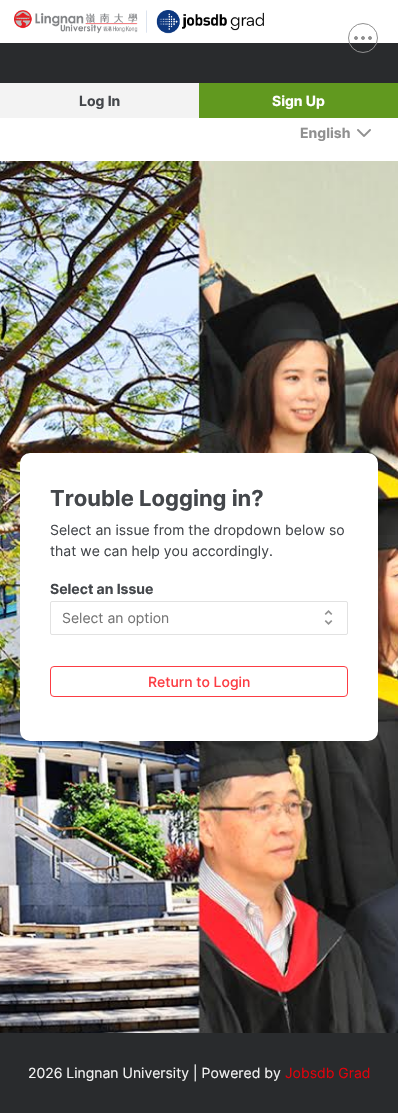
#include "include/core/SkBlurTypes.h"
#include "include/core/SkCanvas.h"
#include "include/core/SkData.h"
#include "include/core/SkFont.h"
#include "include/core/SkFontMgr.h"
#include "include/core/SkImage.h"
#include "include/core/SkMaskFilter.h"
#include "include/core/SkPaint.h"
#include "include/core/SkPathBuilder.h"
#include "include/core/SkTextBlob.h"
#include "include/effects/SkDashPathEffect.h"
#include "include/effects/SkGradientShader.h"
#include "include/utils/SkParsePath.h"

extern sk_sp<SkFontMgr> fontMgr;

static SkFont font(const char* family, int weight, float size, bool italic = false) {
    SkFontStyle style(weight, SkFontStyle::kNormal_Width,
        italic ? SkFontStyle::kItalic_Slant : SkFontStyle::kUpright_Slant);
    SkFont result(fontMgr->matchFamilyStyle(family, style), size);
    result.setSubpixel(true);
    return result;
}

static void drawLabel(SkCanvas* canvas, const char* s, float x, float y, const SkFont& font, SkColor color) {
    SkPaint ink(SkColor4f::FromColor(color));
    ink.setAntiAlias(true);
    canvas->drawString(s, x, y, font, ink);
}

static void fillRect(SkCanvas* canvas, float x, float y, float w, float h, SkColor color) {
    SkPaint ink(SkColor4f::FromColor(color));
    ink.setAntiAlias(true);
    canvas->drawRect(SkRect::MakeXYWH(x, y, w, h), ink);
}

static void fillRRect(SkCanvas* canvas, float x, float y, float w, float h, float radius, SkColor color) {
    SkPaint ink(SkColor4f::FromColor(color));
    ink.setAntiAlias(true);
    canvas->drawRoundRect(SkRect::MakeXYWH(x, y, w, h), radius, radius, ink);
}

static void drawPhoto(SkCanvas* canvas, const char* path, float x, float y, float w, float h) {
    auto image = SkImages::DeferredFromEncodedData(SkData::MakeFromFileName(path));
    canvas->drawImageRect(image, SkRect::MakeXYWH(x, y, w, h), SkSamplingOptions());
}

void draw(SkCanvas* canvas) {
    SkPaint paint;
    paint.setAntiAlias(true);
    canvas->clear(0xFFFFFFFF);
    drawPhoto(canvas, "assets/img1.png", 14, 10, 250, 24);
    fillRect(canvas, 0, 43, 398, 40, 0xFF292B2D);
    paint.setStroke(true);
    paint.setStrokeWidth(1);
    paint.setColor(0xFF909090);
    canvas->drawCircle(363, 38, 14.5f, paint);
    paint.setStroke(false);
    canvas->drawCircle(356, 38, 1.5f, paint);
    paint.setStroke(true);
    canvas->drawCircle(356, 38, 1.5f, paint);
    paint.setStroke(false);
    canvas->drawCircle(363, 38, 1.5f, paint);
    paint.setStroke(true);
    canvas->drawCircle(363, 38, 1.5f, paint);
    paint.setStroke(false);
    canvas->drawCircle(370, 38, 1.5f, paint);
    paint.setStroke(true);
    canvas->drawCircle(370, 38, 1.5f, paint);
    fillRect(canvas, 0, 83, 199, 35, 0xFFF3F3F3);
    SkFont font1 = font("Inter", 700, 14);
    drawLabel(canvas, "Log In", 79, 106, font1, 0xFF44474B);
    fillRect(canvas, 199, 83, 199, 35, 0xFF61991F);
    drawLabel(canvas, "Sign Up", 272, 106, font1, 0xFFFFFFFF);
    drawLabel(canvas, "English", 300, 138, font1, 0xFF909090);
    drawPhoto(canvas, "assets/img2.png", 357, 129, 14, 8);
    drawPhoto(canvas, "assets/img3.png", 0, 161, 398, 872);
    fillRRect(canvas, 20, 453, 358, 288, 10, 0xFFFFFFFF);
    SkFont font2 = font("Inter", 700, 22);
    drawLabel(canvas, "Trouble Logging in?", 50, 506, font2, 0xFF44474B);
    SkFont font3 = font("Inter", 400, 14);
    drawLabel(canvas, "Select an issue from the dropdown below so", 50, 535, font3, 0xFF44474B);
    drawLabel(canvas, "that we can help you accordingly.", 50, 556, font3, 0xFF44474B);
    drawLabel(canvas, "Select an Issue", 50, 594, font1, 0xFF44474B);
    paint.setColor(0xFFE2E2E2);
    canvas->drawRoundRect(SkRect::MakeXYWH(50.5f, 601.5f, 297, 33), 1.5f, 1.5f, paint);
    drawLabel(canvas, "Select an option", 62, 623, font3, 0xFF757575);
    drawPhoto(canvas, "assets/img4.png", 324, 610, 9, 15);
    paint.setColor(0xFFFC3C43);
    canvas->drawRoundRect(SkRect::MakeXYWH(50.5f, 666.5f, 297, 30), 3.5f, 3.5f, paint);
    SkFont font4 = font("Inter", 500, 14);
    drawLabel(canvas, "Return to Login", 148, 687, font4, 0xFFFC3C43);
    fillRect(canvas, 0, 1033, 398, 80, 0xFF292B2D);
    drawLabel(canvas, "2026 Lingnan University | Powered by", 28, 1078, font3, 0xFFF3F3F3);
    drawLabel(canvas, "Jobsdb Grad", 285, 1078, font3, 0xFFDF020B);
}
